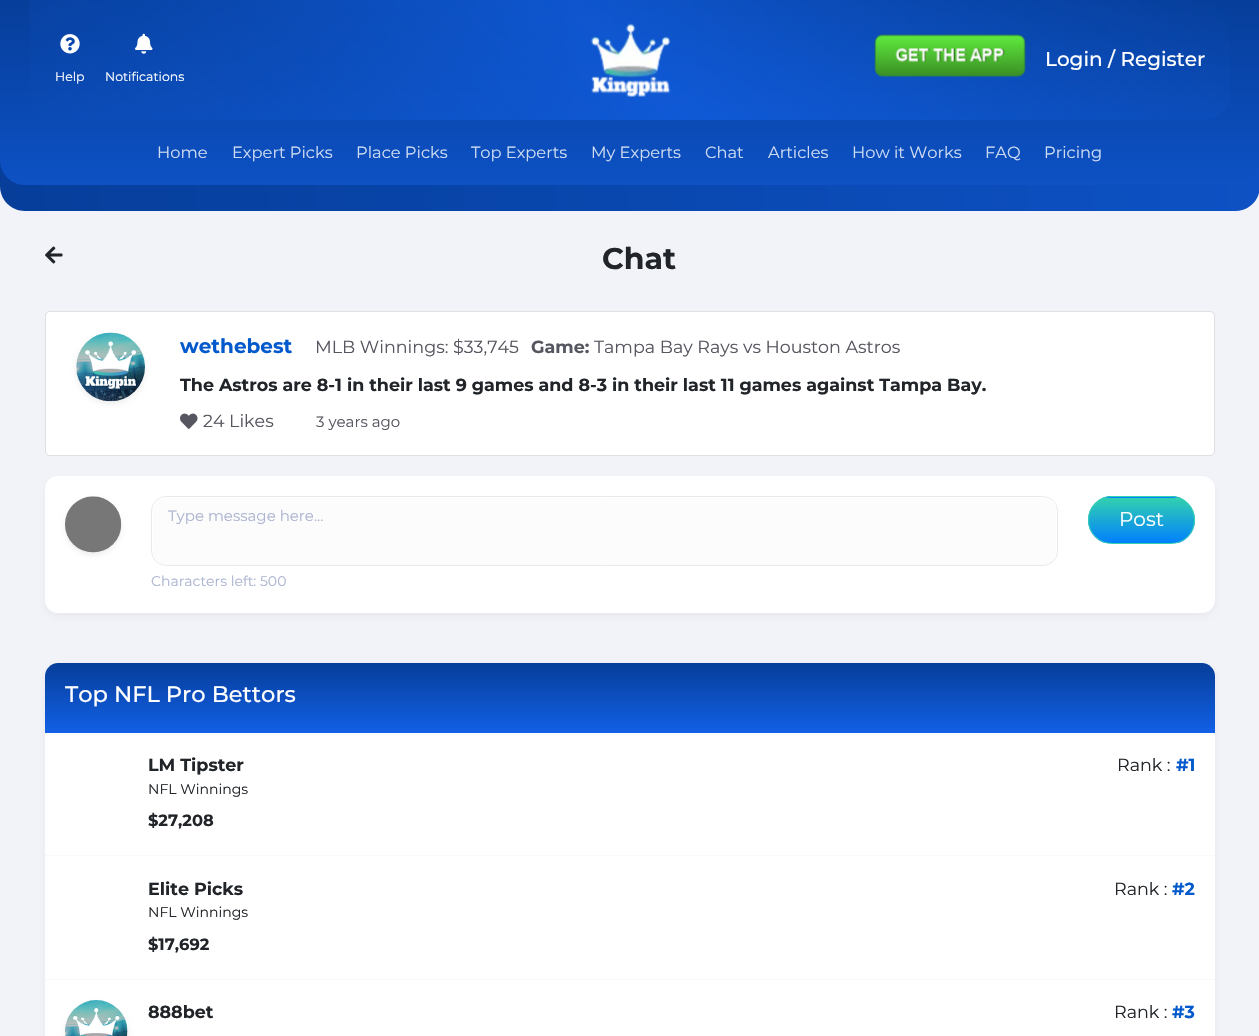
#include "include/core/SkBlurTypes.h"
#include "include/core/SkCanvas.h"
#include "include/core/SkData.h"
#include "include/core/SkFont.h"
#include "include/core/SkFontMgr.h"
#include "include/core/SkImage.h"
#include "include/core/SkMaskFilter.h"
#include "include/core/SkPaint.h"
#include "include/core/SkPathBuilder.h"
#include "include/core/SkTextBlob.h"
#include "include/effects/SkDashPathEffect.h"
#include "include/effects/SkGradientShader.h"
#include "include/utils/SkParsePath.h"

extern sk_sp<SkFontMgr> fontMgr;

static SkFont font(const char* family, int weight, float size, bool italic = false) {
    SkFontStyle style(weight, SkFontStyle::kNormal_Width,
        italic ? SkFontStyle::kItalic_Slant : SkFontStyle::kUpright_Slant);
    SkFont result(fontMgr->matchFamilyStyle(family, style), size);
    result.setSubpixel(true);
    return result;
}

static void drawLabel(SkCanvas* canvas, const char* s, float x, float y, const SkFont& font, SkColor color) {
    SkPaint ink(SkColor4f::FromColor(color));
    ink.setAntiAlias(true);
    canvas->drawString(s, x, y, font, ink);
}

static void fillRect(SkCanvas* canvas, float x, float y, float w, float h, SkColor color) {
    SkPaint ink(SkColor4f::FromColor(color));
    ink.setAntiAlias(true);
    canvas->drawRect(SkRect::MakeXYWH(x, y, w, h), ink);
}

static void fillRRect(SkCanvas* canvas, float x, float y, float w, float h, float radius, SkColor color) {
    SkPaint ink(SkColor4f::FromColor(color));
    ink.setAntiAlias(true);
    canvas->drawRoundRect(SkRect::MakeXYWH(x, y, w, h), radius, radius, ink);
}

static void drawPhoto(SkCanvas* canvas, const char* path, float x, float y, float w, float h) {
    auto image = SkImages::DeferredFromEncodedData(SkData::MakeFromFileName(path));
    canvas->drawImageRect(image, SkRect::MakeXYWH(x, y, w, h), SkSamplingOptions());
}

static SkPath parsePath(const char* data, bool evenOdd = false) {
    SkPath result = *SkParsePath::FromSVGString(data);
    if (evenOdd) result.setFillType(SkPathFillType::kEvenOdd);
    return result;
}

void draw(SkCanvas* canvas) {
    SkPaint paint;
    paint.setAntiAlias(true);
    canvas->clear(0xFFF1F3F9);
    {
        const SkColor colors[] = {0xFF063E9A, 0xFF0D51C4};
        const float stops[] = {0, 1};
        const SkPoint ends[] = {{0, 106}, {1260, 106}};
        paint.setShader(SkGradientShader::MakeLinear(ends, colors, stops, 2, SkTileMode::kClamp));
        paint.setAlpha(255);
    }
    canvas->drawPath(parsePath("M0 0H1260V186C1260 200 1249 211 1235 211H25C11 211 0 200 0 186Z"), paint);
    {
        const SkColor colors[] = {0xFF063E9A, 0xFF0D51C4};
        const float stops[] = {0, 1};
        const SkPoint ends[] = {{630, 0}, {630, 185}};
        paint.setShader(SkGradientShader::MakeLinear(ends, colors, stops, 2, SkTileMode::kClamp));
        paint.setAlpha(255);
    }
    canvas->drawPath(parsePath("M0 0H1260V160C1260 174 1249 185 1235 185H25C11 185 0 174 0 160Z"), paint);
    {
        const SkColor colors[] = {0x00115FE4, 0x4D115FE4, 0xB3115FE4, 0x4D115FE4, 0x00115FE4};
        const float stops[] = {0, 0.25f, 0.5f, 0.75f, 1};
        const SkPoint ends[] = {{300, 390}, {960, -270}};
        paint.setShader(SkGradientShader::MakeLinear(ends, colors, stops, 5, SkTileMode::kClamp));
        paint.setAlpha(255);
    }
    canvas->drawPath(parsePath("M30 0H1230V95C1230 109 1219 120 1205 120H55C41 120 30 109 30 95Z"), paint);
    drawPhoto(canvas, "assets/img1.png", 590, 23, 81, 74);
    drawPhoto(canvas, "assets/img2.png", 874, 34, 152, 43);
    SkFont font1 = font("Montserrat", 500, 20);
    drawLabel(canvas, "Login / Register", 1045, 66, font1, 0xFFFFFFFF);
    drawPhoto(canvas, "assets/img3.png", 60, 34, 20, 20);
    SkFont font2 = font("Montserrat", 400, 12.5f);
    drawLabel(canvas, "Help", 55, 81, font2, 0xFFFFFFFF);
    drawPhoto(canvas, "assets/img4.png", 135, 33, 18, 21);
    drawLabel(canvas, "Notifications", 105, 81, font2, 0xFFFFFFFF);
    SkFont font3 = font("Montserrat", 400, 16.25f);
    drawLabel(canvas, "Home", 157, 158, font3, 0xFFCEDCF2);
    drawLabel(canvas, "Expert Picks", 232, 158, font3, 0xFFCEDCF2);
    drawLabel(canvas, "Place Picks", 356, 158, font3, 0xFFCEDCF2);
    drawLabel(canvas, "Top Experts", 471, 158, font3, 0xFFCEDCF2);
    drawLabel(canvas, "My Experts", 591, 158, font3, 0xFFCEDCF2);
    drawLabel(canvas, "Chat", 705, 158, font3, 0xFFCEDCF2);
    drawLabel(canvas, "Articles", 768, 158, font3, 0xFFCEDCF2);
    drawLabel(canvas, "How it Works", 852, 158, font3, 0xFFCEDCF2);
    drawLabel(canvas, "FAQ", 985, 158, font3, 0xFFCEDCF2);
    drawLabel(canvas, "Pricing", 1044, 158, font3, 0xFFCEDCF2);
    drawPhoto(canvas, "assets/img5.png", 45, 246, 18, 18);
    SkFont font4 = font("Montserrat", 700, 30);
    drawLabel(canvas, "Chat", 602, 269, font4, 0xFF212529);
    fillRRect(canvas, 45, 311, 1170, 145, 5, 0xFFFFFFFF);
    paint.setStroke(true);
    paint.setStrokeWidth(1);
    paint.setShader(nullptr);
    paint.setColor(0x1F000000);
    canvas->drawRoundRect(SkRect::MakeXYWH(45.5f, 311.5f, 1169, 144), 4.5f, 4.5f, paint);
    paint.setStroke(false);
    paint.setColor(0x12000000);
    paint.setMaskFilter(SkMaskFilter::MakeBlur(kNormal_SkBlurStyle, 2.5f));
    canvas->drawRoundRect(SkRect::MakeXYWH(76, 335, 69, 69), 34.5f, 34.5f, paint);
    paint.setMaskFilter(nullptr);
    drawPhoto(canvas, "assets/img6.png", 76, 332, 69, 70);
    SkFont font5 = font("Montserrat", 700, 20);
    drawLabel(canvas, "wethebest", 180, 353, font5, 0xFF0259CB);
    SkFont font6 = font("Montserrat", 400, 17.5f);
    drawLabel(canvas, "MLB Winnings: $33,745", 315, 353, font6, 0xFF55565F);
    SkFont font7 = font("Montserrat", 700, 17.5f);
    drawLabel(canvas, "Game:", 531, 353, font7, 0xFF55565F);
    drawLabel(canvas, "Tampa Bay Rays vs Houston Astros", 594, 353, font6, 0xFF55565F);
    drawLabel(canvas, "The Astros are 8-1 in their last 9 games and 8-3 in their last 11 games against Tampa Bay.", 180, 391, font7, 0xFF212529);
    drawPhoto(canvas, "assets/img7.png", 180, 413, 18, 16);
    drawLabel(canvas, "24 Likes", 203, 427, font6, 0xFF55565F);
    SkFont font8 = font("Montserrat", 400, 15);
    drawLabel(canvas, "3 years ago", 316, 427, font8, 0xFF55565F);
    paint.setColor(0x0D2C2828);
    paint.setMaskFilter(SkMaskFilter::MakeBlur(kNormal_SkBlurStyle, 4));
    canvas->drawRoundRect(SkRect::MakeXYWH(45, 480, 1170, 136), 13, 13, paint);
    paint.setMaskFilter(nullptr);
    fillRRect(canvas, 45, 476, 1170, 137, 13, 0xFFFFFFFF);
    paint.setColor(0x12000000);
    paint.setMaskFilter(SkMaskFilter::MakeBlur(kNormal_SkBlurStyle, 2.5f));
    canvas->drawRoundRect(SkRect::MakeXYWH(65, 499, 56, 56), 28, 28, paint);
    paint.setMaskFilter(nullptr);
    drawPhoto(canvas, "assets/img8.png", 65, 496, 57, 57);
    fillRRect(canvas, 153, 498, 903, 67, 14, 0xFFFCFCFC);
    paint.setStroke(true);
    paint.setColor(0xFFEAEAEA);
    canvas->drawRoundRect(SkRect::MakeXYWH(151.5f, 496.5f, 906, 69), 14.5f, 14.5f, paint);
    drawLabel(canvas, "Type message here...", 168, 521, font8, 0xFFACB5D1);
    SkFont font9 = font("Montserrat", 400, 14);
    drawLabel(canvas, "Characters left: 500", 151, 586, font9, 0xFFACB5D1);
    canvas->save();
    canvas->clipPath(parsePath("M1112 496H1171C1184.5 496 1195 506.5 1195 520C1195 533.5 1184.5 544 1171 544H1112C1098.5 544 1088 533.5 1088 520C1088 506.5 1098.5 496 1112 496Z"), true);
    paint.setStroke(false);
    {
        const SkColor colors[] = {0xFF0180FC, 0xFF32D0B0};
        const float stops[] = {0, 1};
        const SkPoint ends[] = {{1141, 498}, {1141, 453}};
        paint.setShader(SkGradientShader::MakeLinear(ends, colors, stops, 2, SkTileMode::kClamp));
        paint.setAlpha(255);
    }
    canvas->drawRect(SkRect::MakeXYWH(1102, 496, 79, 2), paint);
    {
        const SkColor colors[] = {0xFF0180FC, 0xFF32D0B0};
        const float stops[] = {0, 1};
        const SkPoint ends[] = {{1141, 543}, {1141, 498}};
        paint.setShader(SkGradientShader::MakeLinear(ends, colors, stops, 2, SkTileMode::kClamp));
        paint.setAlpha(255);
    }
    canvas->drawRect(SkRect::MakeXYWH(1088, 498, 107, 45), paint);
    canvas->restore();
    paint.setStroke(true);
    paint.setShader(nullptr);
    paint.setColor(0xFF32D0B0);
    canvas->drawRoundRect(SkRect::MakeXYWH(1088.5f, 496.5f, 106, 47), 23.5f, 23.5f, paint);
    SkFont font10 = font("Montserrat", 400, 20);
    drawLabel(canvas, "Post", 1119, 526, font10, 0xFFFFFFFF);
    paint.setStroke(false);
    paint.setColor(0x0D2C2828);
    paint.setMaskFilter(SkMaskFilter::MakeBlur(kNormal_SkBlurStyle, 4));
    canvas->drawRoundRect(SkRect::MakeXYWH(45, 666, 1170, 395), 13, 13, paint);
    paint.setMaskFilter(nullptr);
    fillRRect(canvas, 45, 663, 1170, 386, 13, 0xFFFFFFFF);
    {
        const SkColor colors[] = {0xFF063E9A, 0xFF1260E6};
        const float stops[] = {0, 1};
        const SkPoint ends[] = {{630, 663}, {630, 733}};
        paint.setShader(SkGradientShader::MakeLinear(ends, colors, stops, 2, SkTileMode::kClamp));
        paint.setAlpha(255);
    }
    canvas->drawPath(parsePath("M58 663H1202C1209 663 1215 669 1215 676V733H45V676C45 669 51 663 58 663Z"), paint);
    SkFont font11 = font("Montserrat", 500, 22.5f);
    drawLabel(canvas, "Top NFL Pro Bettors", 65, 702, font11, 0xFFFFFFFF);
    fillRect(canvas, 45, 855, 1170, 1, 0xFFF8F9FA);
    drawLabel(canvas, "LM Tipster", 148, 771, font7, 0xFF212529);
    drawLabel(canvas, "NFL Winnings", 148, 794, font9, 0xFF212529);
    SkFont font12 = font("Montserrat", 700, 16.25f);
    drawLabel(canvas, "$27,208", 148, 826, font12, 0xFF212529);
    drawLabel(canvas, "Rank :", 1117, 771, font6, 0xFF212529);
    drawLabel(canvas, "#1", 1176, 771, font7, 0xFF0259CB);
    fillRect(canvas, 45, 979, 1170, 1, 0xFFF8F9FA);
    drawLabel(canvas, "Elite Picks", 148, 895, font7, 0xFF212529);
    drawLabel(canvas, "NFL Winnings", 148, 917, font9, 0xFF212529);
    drawLabel(canvas, "$17,692", 148, 950, font12, 0xFF212529);
    drawLabel(canvas, "Rank :", 1114, 895, font6, 0xFF212529);
    drawLabel(canvas, "#2", 1172, 895, font7, 0xFF0259CB);
    paint.setShader(nullptr);
    paint.setColor(0x12000000);
    paint.setMaskFilter(SkMaskFilter::MakeBlur(kNormal_SkBlurStyle, 2.5f));
    canvas->drawRoundRect(SkRect::MakeXYWH(65, 1003, 63, 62), 31, 31, paint);
    paint.setMaskFilter(nullptr);
    drawPhoto(canvas, "assets/img9.png", 65, 1000, 63, 36);
    drawLabel(canvas, "888bet", 148, 1018, font7, 0xFF212529);
    drawLabel(canvas, "Rank :", 1114, 1018, font6, 0xFF212529);
    drawLabel(canvas, "#3", 1172, 1018, font7, 0xFF0259CB);
}
